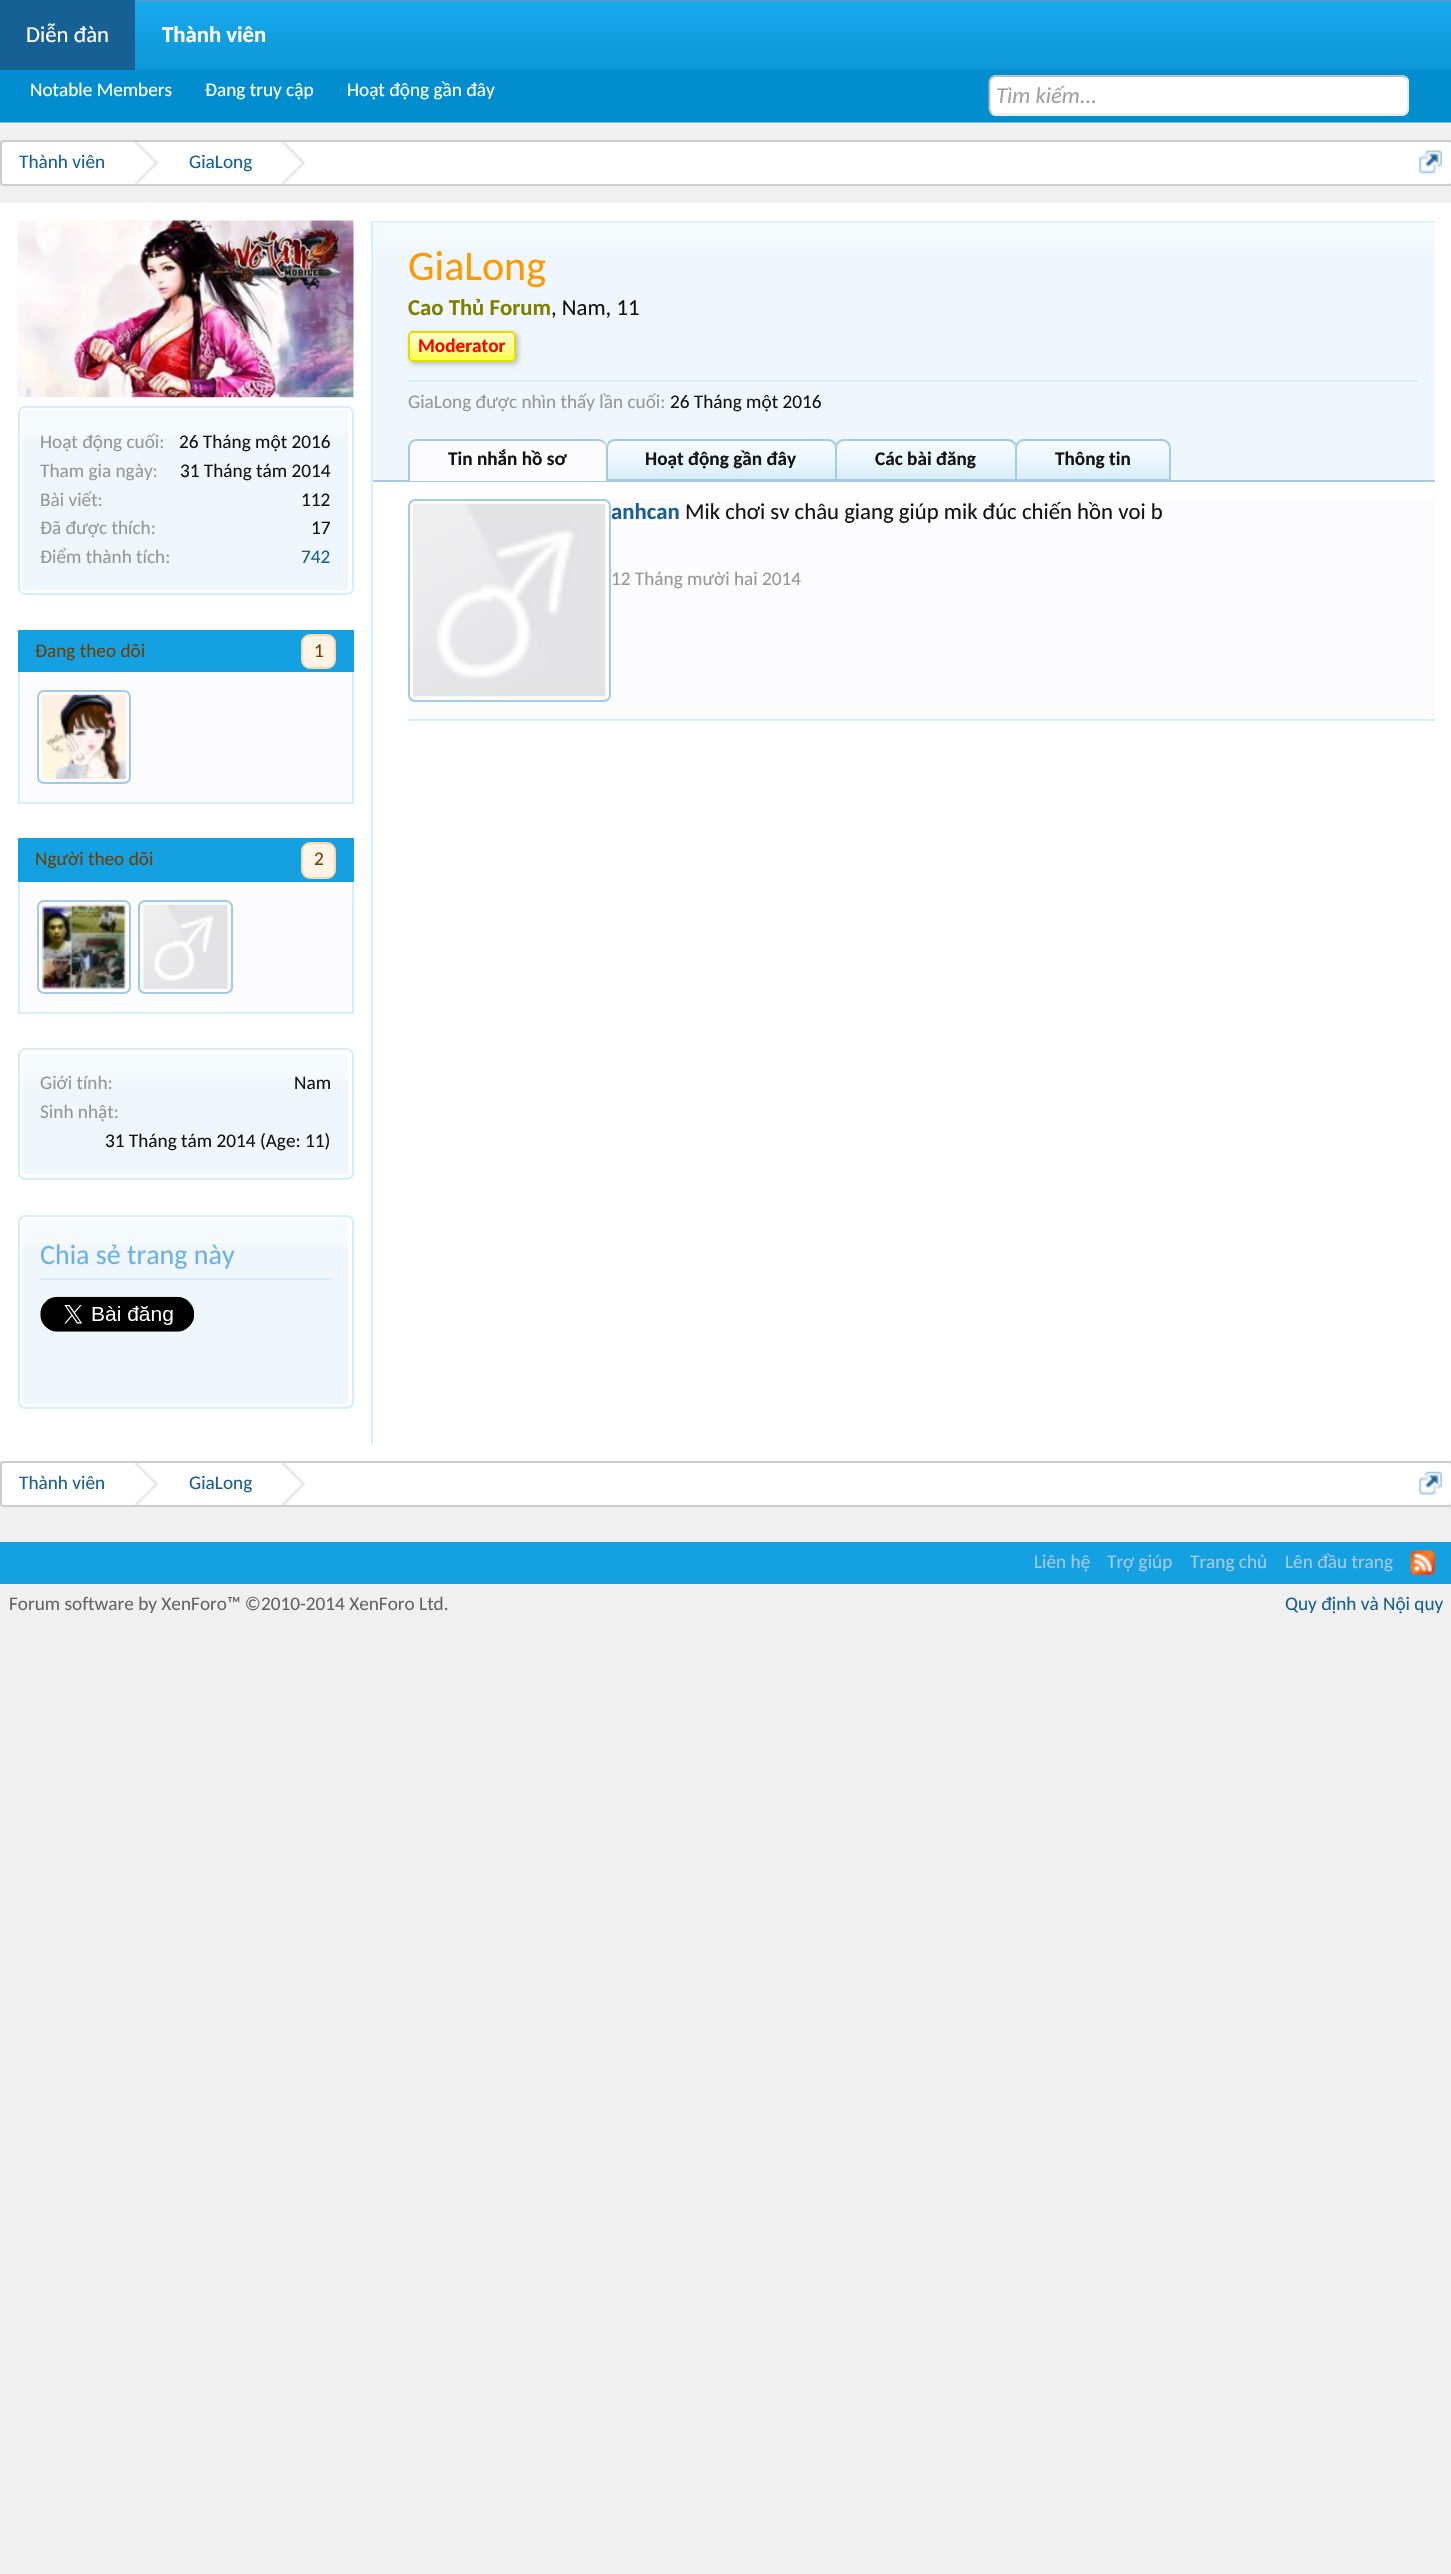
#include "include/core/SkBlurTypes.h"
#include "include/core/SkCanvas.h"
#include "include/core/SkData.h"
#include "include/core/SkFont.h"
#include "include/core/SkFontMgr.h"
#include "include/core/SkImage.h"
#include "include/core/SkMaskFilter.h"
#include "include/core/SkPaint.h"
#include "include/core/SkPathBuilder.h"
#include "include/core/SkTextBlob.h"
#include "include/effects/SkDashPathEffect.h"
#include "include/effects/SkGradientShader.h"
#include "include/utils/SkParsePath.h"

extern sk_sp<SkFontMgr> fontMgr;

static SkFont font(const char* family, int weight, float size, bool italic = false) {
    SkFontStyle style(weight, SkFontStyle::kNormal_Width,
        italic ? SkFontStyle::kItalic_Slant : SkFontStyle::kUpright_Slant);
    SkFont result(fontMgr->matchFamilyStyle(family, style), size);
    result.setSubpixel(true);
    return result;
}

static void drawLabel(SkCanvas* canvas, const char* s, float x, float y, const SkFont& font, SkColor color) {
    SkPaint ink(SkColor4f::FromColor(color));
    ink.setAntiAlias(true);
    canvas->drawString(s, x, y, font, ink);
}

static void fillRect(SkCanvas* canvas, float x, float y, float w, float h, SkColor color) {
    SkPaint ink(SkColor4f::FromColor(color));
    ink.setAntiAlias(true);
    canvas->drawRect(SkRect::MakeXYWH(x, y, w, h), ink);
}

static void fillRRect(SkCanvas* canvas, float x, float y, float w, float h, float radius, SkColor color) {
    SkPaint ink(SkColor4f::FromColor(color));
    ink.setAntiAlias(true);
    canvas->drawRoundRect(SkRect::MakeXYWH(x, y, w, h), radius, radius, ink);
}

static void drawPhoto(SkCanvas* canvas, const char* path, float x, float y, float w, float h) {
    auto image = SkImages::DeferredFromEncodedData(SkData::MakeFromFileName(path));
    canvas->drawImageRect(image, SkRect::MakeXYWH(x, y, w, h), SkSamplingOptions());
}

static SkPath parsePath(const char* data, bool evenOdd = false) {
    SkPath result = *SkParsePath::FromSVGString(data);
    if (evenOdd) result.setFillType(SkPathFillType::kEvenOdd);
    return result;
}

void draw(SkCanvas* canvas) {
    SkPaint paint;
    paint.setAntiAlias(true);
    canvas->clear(0xFFF0F0F0);
    drawPhoto(canvas, "assets/img1.png", 0, 0, 1451, 123);
    fillRect(canvas, 0, 0, 135, 70, 0xFF176093);
    SkFont font1 = font("Carlito", 400, 22.75f);
    drawLabel(canvas, "Diễn đàn", 26, 42, font1, 0xFFFFFFFF);
    SkFont font2 = font("Carlito", 700, 22.75f);
    drawLabel(canvas, "Thành viên", 162, 42, font2, 0xFFFFFFFF);
    SkFont font3 = font("Carlito", 400, 19.25f);
    drawLabel(canvas, "Notable Members", 30, 96, font3, 0xFFFFFFFF);
    drawLabel(canvas, "Đang truy cập", 205, 96, font3, 0xFFFFFFFF);
    drawLabel(canvas, "Hoạt động gần đây", 347, 96, font3, 0xFFFFFFFF);
    fillRRect(canvas, 989, 75, 420, 41, 7, 0xFFFFFFFF);
    paint.setStroke(true);
    paint.setStrokeWidth(1.8f);
    paint.setColor(0xFFE9E9E9);
    canvas->drawPath(parsePath("M1406 78C1407 79 1408 80.5 1408 82V108.5C1408 110 1407 111.5 1406 113C1405 114 1403.5 114.5 1402 114.5H996C994 114.5 992.5 114 991.5 113"), paint);
    paint.setColor(0xFFC0C0C0);
    canvas->drawPath(parsePath("M991.5 113C990.5 111.5 989.5 110 989.5 108.5V82C989.5 80.5 990.5 79 991.5 78C992.5 77 994 76 996 76H1402C1403.5 76 1405 77 1406 78"), paint);
    SkFont font4 = font("Carlito", 400, 22.75f, true);
    drawLabel(canvas, "Tìm kiếm...", 996, 103, font4, 0xFFA0A0A0);
    paint.setStroke(false);
    paint.setColor(0xFFFFFFFF);
    canvas->drawRoundRect(SkRect::MakeXYWH(1, 141, 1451, 44), 3, 3, paint);
    paint.setStroke(true);
    paint.setStrokeWidth(2);
    paint.setColor(0xFFCCCCCC);
    canvas->drawRoundRect(SkRect::MakeXYWH(1, 141, 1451, 44), 3, 3, paint);
    drawLabel(canvas, "Thành viên", 19, 168, font3, 0xFF176093);
    drawPhoto(canvas, "assets/img2.png", 134, 142, 24, 42);
    drawLabel(canvas, "GiaLong", 189, 168, font3, 0xFF176093);
    drawPhoto(canvas, "assets/img3.png", 281, 142, 24, 42);
    drawPhoto(canvas, "assets/img4.png", 1419, 150, 23, 24);
    fillRect(canvas, 0, 203, 1451, 1258, 0xFFFFFFFF);
    fillRect(canvas, 371, 221, 2, 1223, 0xFFD7EDFC);
    drawPhoto(canvas, "assets/img5.png", 17, 220, 337, 178);
    paint.setColor(0xFFD7EDFC);
    canvas->drawRoundRect(SkRect::MakeXYWH(19, 407, 334, 187), 6, 6, paint);
    fillRect(canvas, 23, 411, 325, 179, 0xFFF0F7FC);
    drawPhoto(canvas, "assets/img6.png", 23, 412, 325, 26);
    drawLabel(canvas, "Hoạt động cuối:", 40, 448, font3, 0xFF969696);
    drawLabel(canvas, "26 Tháng một 2016", 179, 448, font3, 0xFF141414);
    drawLabel(canvas, "Tham gia ngày:", 40, 477, font3, 0xFF969696);
    drawLabel(canvas, "31 Tháng tám 2014", 180, 477, font3, 0xFF141414);
    drawLabel(canvas, "Bài viết:", 40, 506, font3, 0xFF969696);
    drawLabel(canvas, "112", 301, 506, font3, 0xFF141414);
    drawLabel(canvas, "Đã được thích:", 40, 534, font3, 0xFF969696);
    drawLabel(canvas, "17", 311, 534, font3, 0xFF141414);
    drawLabel(canvas, "Điểm thành tích:", 40, 563, font3, 0xFF969696);
    drawLabel(canvas, "742", 301, 563, font3, 0xFF176093);
    fillRect(canvas, 18, 630, 336, 42, 0xFF15A0E1);
    drawLabel(canvas, "Đang theo dõi", 35, 657, font3, 0xFF6D3F03);
    paint.setStroke(false);
    paint.setColor(0xFFFFF4E5);
    canvas->drawRoundRect(SkRect::MakeXYWH(302, 635, 33, 33), 8, 8, paint);
    paint.setStroke(true);
    paint.setColor(0xFFF9D9B0);
    canvas->drawRoundRect(SkRect::MakeXYWH(302, 635, 33, 33), 8, 8, paint);
    drawLabel(canvas, "1", 314, 657, font3, 0xFF6D3F03);
    fillRect(canvas, 20, 672, 332, 130, 0xFFFCFCFF);
    fillRect(canvas, 352, 672, 2, 131, 0xFFD7EDFC);
    fillRect(canvas, 18, 802, 336, 2, 0xFFD7EDFC);
    fillRect(canvas, 18, 672, 2, 131, 0xFFD7EDFC);
    drawPhoto(canvas, "assets/img7.png", 42, 694, 84, 85);
    paint.setColor(0xFFA5CAE4);
    canvas->drawRoundRect(SkRect::MakeXYWH(38, 691, 92, 92), 6, 6, paint);
    fillRect(canvas, 18, 838, 336, 44, 0xFF15A0E1);
    drawLabel(canvas, "Người theo dõi", 35, 865, font3, 0xFF6D3F03);
    paint.setStroke(false);
    paint.setColor(0xFFFFF4E5);
    canvas->drawRoundRect(SkRect::MakeXYWH(302, 843, 33, 35), 8, 8, paint);
    paint.setStroke(true);
    paint.setColor(0xFFF9D9B0);
    canvas->drawRoundRect(SkRect::MakeXYWH(302, 843, 33, 35), 8, 8, paint);
    drawLabel(canvas, "2", 314, 865, font3, 0xFF6D3F03);
    fillRect(canvas, 20, 882, 332, 130, 0xFFFCFCFF);
    fillRect(canvas, 352, 882, 2, 131, 0xFFD7EDFC);
    fillRect(canvas, 18, 1012, 336, 2, 0xFFD7EDFC);
    fillRect(canvas, 18, 882, 2, 131, 0xFFD7EDFC);
    drawPhoto(canvas, "assets/img8.png", 42, 904, 84, 85);
    paint.setColor(0xFFA5CAE4);
    canvas->drawRoundRect(SkRect::MakeXYWH(38, 901, 92, 92), 6, 6, paint);
    drawPhoto(canvas, "assets/img9.png", 143, 904, 85, 85);
    canvas->drawRoundRect(SkRect::MakeXYWH(139, 901, 93, 92), 6, 6, paint);
    paint.setColor(0xFFD7EDFC);
    canvas->drawRoundRect(SkRect::MakeXYWH(19, 1049, 334, 130), 6, 6, paint);
    fillRect(canvas, 23, 1054, 325, 120, 0xFFF0F7FC);
    drawPhoto(canvas, "assets/img10.png", 23, 1054, 325, 27);
    drawLabel(canvas, "Giới tính:", 40, 1089, font3, 0xFF969696);
    drawLabel(canvas, "Nam", 294, 1089, font3, 0xFF141414);
    drawLabel(canvas, "Sinh nhật:", 40, 1118, font3, 0xFF969696);
    drawLabel(canvas, "31 Tháng tám 2014 (Age: 11)", 105, 1147, font3, 0xFF141414);
    canvas->drawRoundRect(SkRect::MakeXYWH(19, 1216, 334, 192), 6, 6, paint);
    fillRect(canvas, 23, 1220, 325, 184, 0xFFF0F7FC);
    drawPhoto(canvas, "assets/img11.png", 23, 1220, 325, 27);
    fillRect(canvas, 40, 1278, 291, 2, 0xFFD7EDFC);
    SkFont font5 = font("Carlito", 400, 28);
    drawLabel(canvas, "Chia sẻ trang này", 40, 1264, font5, 0xFF6CB2E4);
    drawPhoto(canvas, "assets/img12.png", 40, 1296, 155, 36);
    fillRect(canvas, 373, 221, 1062, 1, 0xFFD7EDFC);
    fillRect(canvas, 373, 222, 1062, 258, 0xFFF0F7FC);
    drawPhoto(canvas, "assets/img13.png", 373, 223, 1062, 26);
    SkFont font6 = font("Carlito", 400, 42);
    drawLabel(canvas, "GiaLong", 408, 280, font6, 0xFFFF9900);
    drawLabel(canvas, "Cao Thủ Forum", 408, 315, font2, 0xFF808000);
    drawLabel(canvas, ", Nam, 11", 551, 315, font1, 0xFF141414);
    paint.setStroke(false);
    paint.setColor(0x40000000);
    paint.setMaskFilter(SkMaskFilter::MakeBlur(kNormal_SkBlurStyle, 2.5f));
    canvas->drawRoundRect(SkRect::MakeXYWH(410, 333, 108, 31), 5, 5, paint);
    paint.setMaskFilter(nullptr);
    fillRRect(canvas, 408, 331, 108, 31, 5, 0xFFFFFF00);
    drawPhoto(canvas, "assets/img14.png", 408, 332, 108, 30);
    paint.setStroke(true);
    paint.setColor(0xFFE0E000);
    canvas->drawRoundRect(SkRect::MakeXYWH(409, 332, 106, 29), 4, 4, paint);
    SkFont font7 = font("Carlito", 700, 19.25f);
    drawLabel(canvas, "Moderator", 418, 352, font7, 0xFFFF0000);
    fillRect(canvas, 408, 380, 1010, 2, 0xFFD7EDFC);
    drawLabel(canvas, "GiaLong được nhìn thấy lần cuối:", 408, 408, font3, 0xFF969696);
    drawLabel(canvas, "26 Tháng một 2016", 670, 408, font3, 0xFF141414);
    fillRect(canvas, 373, 480, 1062, 2, 0xFFA5CAE4);
    paint.setStroke(false);
    paint.setColor(0xFFFCFCFF);
    canvas->drawPath(parsePath("M417 439H598C603 439 607 443 607 448V481H408V448C408 443 412 439 417 439Z"), paint);
    drawPhoto(canvas, "assets/img15.png", 408, 444, 199, 2);
    paint.setColor(0xFFA5CAE4);
    canvas->drawPath(parsePath("M416 439H598C603 439 607 443 607 448V481H408V448C408 443 412 439 416 439ZM416 441H598C602 441 606 444 606 448V481H410V448C410 444 413 441 416 441Z", true), paint);
    drawLabel(canvas, "Tin nhắn hồ sơ", 448, 465, font7, 0xFF141414);
    paint.setColor(0xFFD7EDFC);
    canvas->drawPath(parsePath("M615 439H828C833 439 837 443 837 448V481H606V448C606 443 610 439 615 439Z"), paint);
    drawPhoto(canvas, "assets/img16.png", 606, 441, 230, 37);
    paint.setStroke(true);
    paint.setColor(0xFFA5CAE4);
    canvas->drawPath(parsePath("M615 440H828C832.5 440 836 443.5 836 448V480H607V448C607 443.5 610.5 440 615 440Z"), paint);
    drawLabel(canvas, "Hoạt động gần đây", 645, 465, font7, 0xFF141414);
    paint.setStroke(false);
    paint.setColor(0xFFD7EDFC);
    canvas->drawPath(parsePath("M844 439H1008C1013 439 1017 443 1017 448V481H835V448C835 443 839 439 844 439Z"), paint);
    drawPhoto(canvas, "assets/img17.png", 835, 441, 181, 37);
    paint.setStroke(true);
    paint.setColor(0xFFA5CAE4);
    canvas->drawPath(parsePath("M844 440H1008C1012.5 440 1016 443.5 1016 448V480H836V448C836 443.5 839.5 440 844 440Z"), paint);
    drawLabel(canvas, "Các bài đăng", 875, 465, font7, 0xFF141414);
    paint.setStroke(false);
    paint.setColor(0xFFD7EDFC);
    canvas->drawPath(parsePath("M1024 439H1162C1167 439 1171 443 1171 448V481H1015V448C1015 443 1019 439 1024 439Z"), paint);
    drawPhoto(canvas, "assets/img18.png", 1015, 441, 156, 37);
    paint.setStroke(true);
    paint.setColor(0xFFA5CAE4);
    canvas->drawPath(parsePath("M1024 440H1162C1166.5 440 1170 443.5 1170 448V480H1016V448C1016 443.5 1019.5 440 1024 440Z"), paint);
    drawLabel(canvas, "Thông tin", 1055, 465, font7, 0xFF141414);
    fillRect(canvas, 408, 499, 1027, 220, 0xFFFCFCFF);
    fillRect(canvas, 408, 719, 1027, 2, 0xFFD7EDFC);
    canvas->drawRoundRect(SkRect::MakeXYWH(409, 500, 201, 201), 6, 6, paint);
    drawPhoto(canvas, "assets/img19.png", 413, 504, 193, 193);
    drawLabel(canvas, "anhcan", 611, 519, font2, 0xFF176093);
    drawLabel(canvas, "Mik chơi sv châu giang giúp mik đúc chiến hồn voi b", 685, 519, font1, 0xFF141414);
    drawLabel(canvas, "12 Tháng mười hai 2014", 611, 585, font3, 0xFF969696);
    paint.setStroke(false);
    paint.setColor(0xFFFFFFFF);
    canvas->drawRoundRect(SkRect::MakeXYWH(1, 1462, 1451, 44), 3, 3, paint);
    paint.setStroke(true);
    paint.setColor(0xFFCCCCCC);
    canvas->drawRoundRect(SkRect::MakeXYWH(1, 1462, 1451, 44), 3, 3, paint);
    drawLabel(canvas, "Thành viên", 19, 1489, font3, 0xFF176093);
    drawPhoto(canvas, "assets/img20.png", 134, 1463, 24, 42);
    drawLabel(canvas, "GiaLong", 189, 1489, font3, 0xFF176093);
    drawPhoto(canvas, "assets/img20.png", 281, 1463, 24, 42);
    drawPhoto(canvas, "assets/img21.png", 1419, 1471, 23, 24);
    fillRect(canvas, 0, 1542, 1451, 42, 0xFF15A0E1);
    drawLabel(canvas, "Liên hệ", 1034, 1568, font3, 0xFFA5CAE4);
    drawLabel(canvas, "Trợ giúp", 1107, 1568, font3, 0xFFA5CAE4);
    drawLabel(canvas, "Trang chủ", 1190, 1568, font3, 0xFFA5CAE4);
    drawLabel(canvas, "Lên đầu trang", 1285, 1568, font3, 0xFFA5CAE4);
    drawPhoto(canvas, "assets/img22.png", 1410, 1550, 25, 25);
    drawLabel(canvas, "Forum software by XenForo™ ©2010-2014 XenForo Ltd.", 9, 1610, font3, 0xFF646464);
    drawLabel(canvas, "Quy định và Nội quy", 1285, 1610, font3, 0xFF176093);
}
